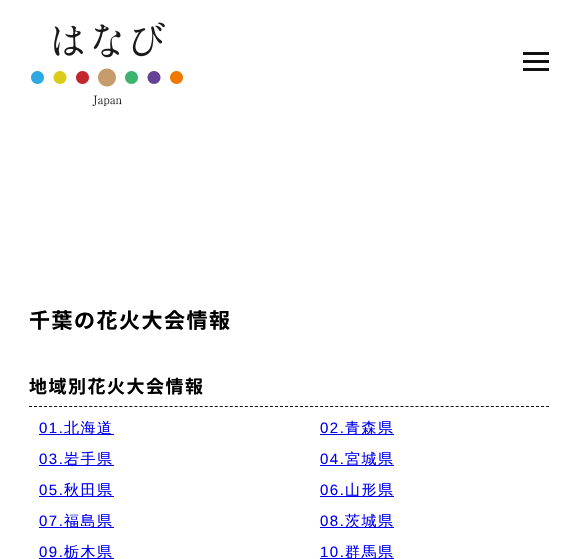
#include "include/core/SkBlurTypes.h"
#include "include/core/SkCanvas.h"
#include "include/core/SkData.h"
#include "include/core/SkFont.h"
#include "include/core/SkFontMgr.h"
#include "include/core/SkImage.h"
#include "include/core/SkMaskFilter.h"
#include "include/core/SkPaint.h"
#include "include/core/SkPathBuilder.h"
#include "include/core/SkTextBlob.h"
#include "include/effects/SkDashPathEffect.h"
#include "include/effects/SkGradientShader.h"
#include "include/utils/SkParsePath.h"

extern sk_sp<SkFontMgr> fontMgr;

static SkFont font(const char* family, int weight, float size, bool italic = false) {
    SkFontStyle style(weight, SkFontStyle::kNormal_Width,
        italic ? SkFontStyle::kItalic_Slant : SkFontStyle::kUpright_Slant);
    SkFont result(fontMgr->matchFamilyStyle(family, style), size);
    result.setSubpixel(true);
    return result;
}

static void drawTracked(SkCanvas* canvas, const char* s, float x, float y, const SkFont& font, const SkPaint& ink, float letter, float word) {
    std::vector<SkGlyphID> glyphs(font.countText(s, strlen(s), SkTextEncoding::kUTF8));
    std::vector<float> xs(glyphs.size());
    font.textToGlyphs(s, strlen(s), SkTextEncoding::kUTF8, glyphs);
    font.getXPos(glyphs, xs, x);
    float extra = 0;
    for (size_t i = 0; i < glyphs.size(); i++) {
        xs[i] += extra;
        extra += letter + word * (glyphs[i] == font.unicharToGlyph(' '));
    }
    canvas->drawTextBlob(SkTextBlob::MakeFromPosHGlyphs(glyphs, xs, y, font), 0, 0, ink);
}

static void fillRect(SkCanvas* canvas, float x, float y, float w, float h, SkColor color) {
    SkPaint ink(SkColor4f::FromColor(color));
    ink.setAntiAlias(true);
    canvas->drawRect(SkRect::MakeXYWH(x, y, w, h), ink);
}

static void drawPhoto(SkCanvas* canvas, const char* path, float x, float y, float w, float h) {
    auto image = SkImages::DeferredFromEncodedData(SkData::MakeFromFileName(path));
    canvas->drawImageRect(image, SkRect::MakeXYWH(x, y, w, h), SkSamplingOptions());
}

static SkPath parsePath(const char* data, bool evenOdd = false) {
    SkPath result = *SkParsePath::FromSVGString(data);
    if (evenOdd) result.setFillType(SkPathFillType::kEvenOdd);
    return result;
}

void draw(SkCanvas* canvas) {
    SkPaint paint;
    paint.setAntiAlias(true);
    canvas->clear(0xFFFFFFFF);
    drawPhoto(canvas, "assets/img1.png", 31, 22, 152, 84);
    fillRect(canvas, 523, 60, 26, 3, 0xFF111111);
    fillRect(canvas, 523, 52, 26, 3, 0xFF111111);
    fillRect(canvas, 523, 68, 26, 3, 0xFF111111);
    SkFont font1 = font("Noto Sans JP", 700, 21);
    paint.setColor(0xFF000000);
    drawTracked(canvas, "千葉の花火大会情報", 29, 328, font1, paint, 1.5f, 0);
    paint.setStroke(true);
    paint.setStrokeWidth(1);
    paint.setColor(0xFF111111);
    paint.setPathEffect(SkDashPathEffect::Make({{3, 2.02f}}, 0));
    canvas->drawPath(parsePath("M29 406.5H549"), paint);
    paint.setPathEffect(nullptr);
    SkFont font2 = font("Noto Sans JP", 700, 18);
    paint.setStroke(false);
    paint.setColor(0xFF000000);
    drawTracked(canvas, "地域別花火大会情報", 29, 393, font2, paint, 1.5f, 0);
    SkFont font3 = font("Liberation Sans", 400, 15);
    paint.setColor(0xFF0000EE);
    drawTracked(canvas, "01.", 39, 433, font3, paint, 1.5f, 0);
    fillRect(canvas, 39, 434, 75, 1, 0xFF0000EE);
    SkFont font4 = font("WenQuanYi Zen Hei", 500, 15);
    drawTracked(canvas, "北海道", 64, 433, font4, paint, 1.5f, 0);
    drawTracked(canvas, "02.", 320, 433, font3, paint, 1.5f, 0);
    fillRect(canvas, 320, 434, 74, 1, 0xFF0000EE);
    drawTracked(canvas, "青森県", 345, 433, font4, paint, 1.5f, 0);
    drawTracked(canvas, "03.", 39, 464, font3, paint, 1.5f, 0);
    fillRect(canvas, 39, 465, 75, 1, 0xFF0000EE);
    drawTracked(canvas, "岩手県", 64, 464, font4, paint, 1.5f, 0);
    drawTracked(canvas, "04.", 320, 464, font3, paint, 1.5f, 0);
    fillRect(canvas, 320, 465, 74, 1, 0xFF0000EE);
    drawTracked(canvas, "宮城県", 345, 464, font4, paint, 1.5f, 0);
    drawTracked(canvas, "05.", 39, 495, font3, paint, 1.5f, 0);
    fillRect(canvas, 39, 496, 75, 1, 0xFF0000EE);
    drawTracked(canvas, "秋田県", 64, 495, font4, paint, 1.5f, 0);
    drawTracked(canvas, "06.", 320, 495, font3, paint, 1.5f, 0);
    fillRect(canvas, 320, 496, 74, 1, 0xFF0000EE);
    drawTracked(canvas, "山形県", 345, 495, font4, paint, 1.5f, 0);
    drawTracked(canvas, "07.", 39, 526, font3, paint, 1.5f, 0);
    fillRect(canvas, 39, 527, 75, 1, 0xFF0000EE);
    drawTracked(canvas, "福島県", 64, 526, font4, paint, 1.5f, 0);
    drawTracked(canvas, "08.", 320, 526, font3, paint, 1.5f, 0);
    fillRect(canvas, 320, 527, 74, 1, 0xFF0000EE);
    drawTracked(canvas, "茨城県", 345, 526, font4, paint, 1.5f, 0);
    drawTracked(canvas, "09.", 39, 557, font3, paint, 1.5f, 0);
    fillRect(canvas, 39, 558, 75, 1, 0xFF0000EE);
    drawTracked(canvas, "栃木県", 64, 557, font4, paint, 1.5f, 0);
    drawTracked(canvas, "10.", 320, 557, font3, paint, 1.5f, 0);
    fillRect(canvas, 320, 558, 74, 1, 0xFF0000EE);
    drawTracked(canvas, "群馬県", 345, 557, font4, paint, 1.5f, 0);
}
